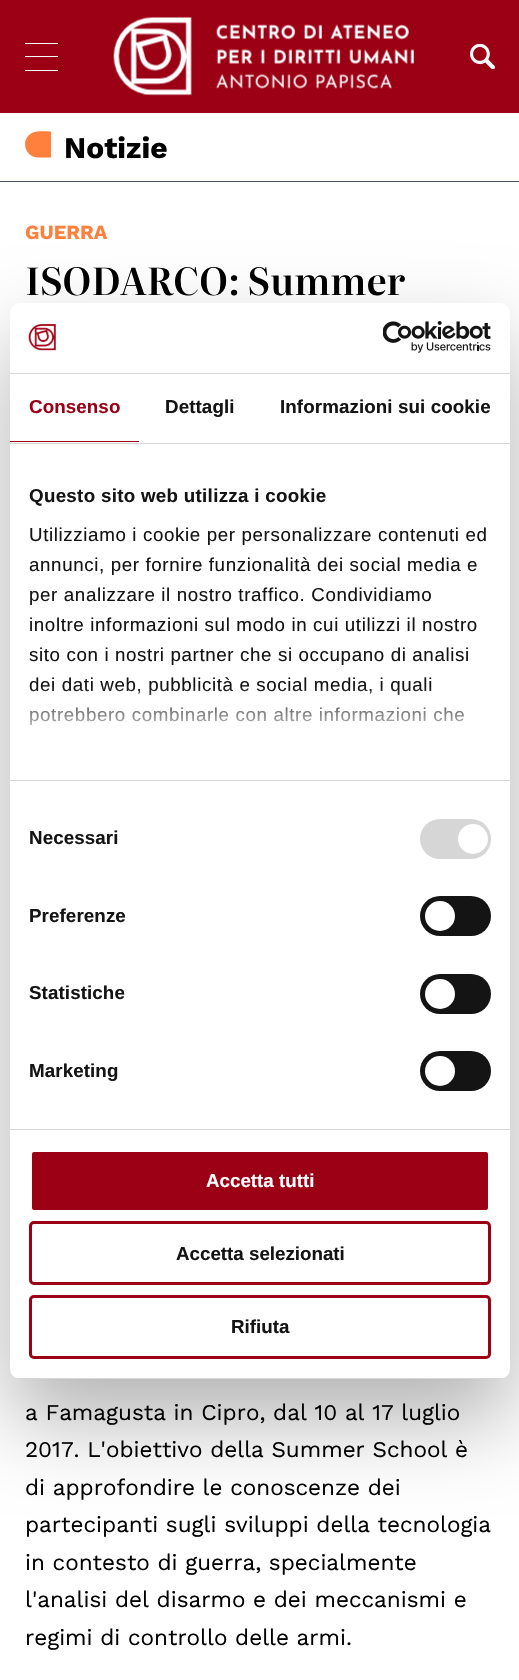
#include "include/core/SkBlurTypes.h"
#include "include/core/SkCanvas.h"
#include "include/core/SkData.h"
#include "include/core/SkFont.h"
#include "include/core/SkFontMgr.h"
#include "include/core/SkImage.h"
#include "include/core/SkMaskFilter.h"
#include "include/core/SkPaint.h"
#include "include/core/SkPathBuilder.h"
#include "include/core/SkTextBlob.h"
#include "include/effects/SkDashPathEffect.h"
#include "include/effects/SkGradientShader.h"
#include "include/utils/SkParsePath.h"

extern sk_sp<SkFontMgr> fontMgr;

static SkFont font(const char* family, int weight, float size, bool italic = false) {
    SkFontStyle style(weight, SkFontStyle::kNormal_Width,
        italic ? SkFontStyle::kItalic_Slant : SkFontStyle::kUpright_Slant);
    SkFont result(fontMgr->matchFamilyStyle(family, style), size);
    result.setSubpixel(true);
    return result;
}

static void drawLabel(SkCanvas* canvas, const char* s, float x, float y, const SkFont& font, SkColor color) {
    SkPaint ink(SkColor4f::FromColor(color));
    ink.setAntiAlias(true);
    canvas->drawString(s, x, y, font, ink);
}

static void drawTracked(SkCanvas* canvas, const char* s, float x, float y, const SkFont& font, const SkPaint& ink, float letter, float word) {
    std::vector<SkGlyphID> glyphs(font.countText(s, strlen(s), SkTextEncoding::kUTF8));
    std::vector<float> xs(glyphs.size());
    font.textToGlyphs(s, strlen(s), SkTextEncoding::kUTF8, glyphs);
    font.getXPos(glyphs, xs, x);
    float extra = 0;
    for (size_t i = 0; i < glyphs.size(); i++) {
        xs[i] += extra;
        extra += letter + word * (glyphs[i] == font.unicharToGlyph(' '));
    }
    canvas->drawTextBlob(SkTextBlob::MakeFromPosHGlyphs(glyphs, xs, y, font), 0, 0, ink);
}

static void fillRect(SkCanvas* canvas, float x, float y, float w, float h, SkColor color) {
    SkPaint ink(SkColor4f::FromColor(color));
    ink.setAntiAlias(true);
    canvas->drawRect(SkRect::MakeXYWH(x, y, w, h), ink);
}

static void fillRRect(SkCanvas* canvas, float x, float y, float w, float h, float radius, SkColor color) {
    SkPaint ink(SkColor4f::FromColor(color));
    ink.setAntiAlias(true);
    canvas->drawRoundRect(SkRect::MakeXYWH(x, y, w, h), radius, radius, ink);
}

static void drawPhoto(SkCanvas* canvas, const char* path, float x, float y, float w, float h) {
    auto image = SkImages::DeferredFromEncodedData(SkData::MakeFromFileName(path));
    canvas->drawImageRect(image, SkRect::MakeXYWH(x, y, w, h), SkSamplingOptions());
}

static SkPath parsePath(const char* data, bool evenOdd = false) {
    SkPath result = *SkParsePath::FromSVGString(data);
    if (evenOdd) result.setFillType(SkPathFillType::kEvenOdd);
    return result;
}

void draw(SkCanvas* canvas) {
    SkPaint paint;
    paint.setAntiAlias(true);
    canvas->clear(0xFFFFFFFF);
    fillRect(canvas, 0, 0, 519, 113, 0xFF9B0014);
    fillRect(canvas, 25, 43, 33, 1, 0xFFFFFFFF);
    fillRect(canvas, 25, 56, 33, 1, 0xFFFFFFFF);
    fillRect(canvas, 25, 70, 33, 1, 0xFFFFFFFF);
    drawPhoto(canvas, "assets/img1.png", 113, 17, 301, 79);
    drawPhoto(canvas, "assets/img2.png", 470, 44, 25, 25);
    fillRect(canvas, 0, 181, 519, 1, 0xFF4B5562);
    canvas->save();
    canvas->clipRect(SkRect::MakeXYWH(25, 131, 26, 27));
    paint.setColor(0xFFFF7F3D);
    canvas->drawPath(parsePath("M51.5 157.5V131.5C46.5 131.5 37.5 130.5 33 132.5C20 138 24 157.5 38 157.5Z"), paint);
    canvas->restore();
    SkFont font1 = font("Work Sans", 700, 30);
    drawLabel(canvas, "Notizie", 64, 158, font1, 0xFF000000);
    SkFont font2 = font("Work Sans", 700, 20);
    drawLabel(canvas, "GUERRA", 25, 239, font2, 0xFFFF7F3D);
    SkFont font3 = font("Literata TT", 600, 37.5f);
    drawLabel(canvas, "ISODARCO: Summer", 25, 295, font3, 0xFF000000);
    SkFont font4 = font("Work Sans", 400, 22.5f);
    drawLabel(canvas, "a Famagusta in Cipro, dal 10 al 17 luglio", 25, 1420, font4, 0xFF000000);
    drawLabel(canvas, "2017. L'obiettivo della Summer School è", 25, 1457, font4, 0xFF000000);
    drawLabel(canvas, "di approfondire le conoscenze dei", 25, 1495, font4, 0xFF000000);
    drawLabel(canvas, "partecipanti sugli sviluppi della tecnologia", 25, 1532, font4, 0xFF000000);
    drawLabel(canvas, "in contesto di guerra, specialmente", 25, 1570, font4, 0xFF000000);
    drawLabel(canvas, "l'analisi del disarmo e dei meccanismi e", 25, 1607, font4, 0xFF000000);
    drawLabel(canvas, "regimi di controllo delle armi.", 25, 1645, font4, 0xFF000000);
    paint.setColor(0x4D000000);
    paint.setMaskFilter(SkMaskFilter::MakeBlur(kNormal_SkBlurStyle, 42.5f));
    canvas->drawRoundRect(SkRect::MakeXYWH(10, 343, 500, 1076), 10, 10, paint);
    paint.setMaskFilter(nullptr);
    fillRRect(canvas, 10, 303, 500, 1076, 10, 0xFFFFFFFF);
    fillRect(canvas, 10, 373, 500, 1, 0xFFD6D6D6);
    drawPhoto(canvas, "assets/img3.png", 28, 323, 28, 28);
    drawPhoto(canvas, "assets/img4.png", 383, 321, 108, 32);
    fillRect(canvas, 10, 443, 500, 1, 0xFFD6D6D6);
    fillRect(canvas, 10, 441, 129, 1, 0xFF9B0014);
    SkFont font5 = font("Liberation Sans", 700, 18.75f);
    paint.setColor(0xFF9B0014);
    drawTracked(canvas, "Consenso", 29, 413, font5, paint, 0.1f, 0);
    paint.setColor(0xFF141414);
    drawTracked(canvas, "Dettagli", 165, 413, font5, paint, 0.1f, 0);
    drawTracked(canvas, "Informazioni sui cookie", 280, 413, font5, paint, 0.1f, 0);
    fillRect(canvas, 10, 780, 500, 1, 0xFFD6D6D6);
    drawTracked(canvas, "Questo sito web utilizza i cookie", 29, 502, font5, paint, 0.3f, 0);
    SkFont font6 = font("Liberation Sans", 400, 18.75f);
    drawTracked(canvas, "Utilizziamo i cookie per personalizzare contenuti ed", 29, 541, font6, paint, 0.62f, 0);
    drawTracked(canvas, "annunci, per fornire funzionalità dei social media e", 29, 571, font6, paint, 0.62f, 0);
    drawTracked(canvas, "per analizzare il nostro traffico. Condividiamo", 29, 601, font6, paint, 0.62f, 0);
    drawTracked(canvas, "inoltre informazioni sul modo in cui utilizzi il nostro", 29, 631, font6, paint, 0.62f, 0);
    drawTracked(canvas, "sito con i nostri partner che si occupano di analisi", 29, 661, font6, paint, 0.62f, 0);
    drawTracked(canvas, "dei dati web, pubblicità e social media, i quali", 29, 691, font6, paint, 0.62f, 0);
    drawTracked(canvas, "potrebbero combinarle con altre informazioni che", 29, 721, font6, paint, 0.62f, 0);
    {
        const SkColor colors[] = {0xFFFFFFFF, 0xCCFFFFFF, 0x00FFFFFF};
        const float stops[] = {0, 0.5f, 1};
        const SkPoint ends[] = {{252, 780}, {252, 686}};
        paint.setShader(SkGradientShader::MakeLinear(ends, colors, stops, 3, SkTileMode::kClamp));
        paint.setAlpha(255);
    }
    canvas->drawRect(SkRect::MakeXYWH(29, 687, 435, 38), paint);
    fillRect(canvas, 10, 1129, 500, 1, 0xFFD6D6D6);
    paint.setShader(nullptr);
    paint.setColor(0xFF141414);
    drawTracked(canvas, "Necessari", 29, 844, font5, paint, 0.1f, 0);
    fillRRect(canvas, 420, 819, 71, 40, 20, 0xFFD6D6D6);
    paint.setColor(0xFFFFFFFF);
    canvas->drawCircle(473, 839, 15, paint);
    paint.setColor(0xFF141414);
    drawTracked(canvas, "Preferenze", 29, 922, font5, paint, 0.1f, 0);
    fillRRect(canvas, 420, 896, 71, 40, 20, 0xFF141414);
    paint.setColor(0xFFFFFFFF);
    canvas->drawCircle(440, 916, 15, paint);
    paint.setColor(0xFF141414);
    drawTracked(canvas, "Statistiche", 29, 999, font5, paint, 0.1f, 0);
    fillRRect(canvas, 420, 974, 71, 40, 20, 0xFF141414);
    paint.setColor(0xFFFFFFFF);
    canvas->drawCircle(440, 994, 15, paint);
    paint.setColor(0xFF141414);
    drawTracked(canvas, "Marketing", 29, 1077, font5, paint, 0.1f, 0);
    fillRRect(canvas, 420, 1051, 71, 40, 20, 0xFF141414);
    paint.setColor(0xFFFFFFFF);
    canvas->drawCircle(440, 1071, 15, paint);
    canvas->save();
    canvas->clipPath(parsePath("M20 303H500C505.5 303 510 307.5 510 313V1369C510 1374.5 505.5 1379 500 1379H20C14.5 1379 10 1374.5 10 1369V313C10 307.5 14.5 303 20 303Z"), true);
    fillRect(canvas, 10, 1378, 500, 1, 0xFFD6D6D6);
    canvas->restore();
    paint.setColor(0xFF9B0014);
    canvas->drawRoundRect(SkRect::MakeXYWH(30.5f, 1150.5f, 459, 61), 3.5f, 3.5f, paint);
    paint.setStroke(true);
    paint.setStrokeWidth(3);
    paint.setColor(0xFFFFFFFF);
    canvas->drawRoundRect(SkRect::MakeXYWH(30.5f, 1150.5f, 459, 61), 3.5f, 3.5f, paint);
    drawLabel(canvas, "Accetta tutti", 206, 1187, font5, 0xFFFFFFFF);
    paint.setColor(0xFF9B0014);
    canvas->drawRoundRect(SkRect::MakeXYWH(30.5f, 1222.5f, 459, 61), 3.5f, 3.5f, paint);
    drawLabel(canvas, "Accetta selezionati", 176, 1260, font5, 0xFF141414);
    canvas->drawRoundRect(SkRect::MakeXYWH(30.5f, 1296.5f, 459, 61), 3.5f, 3.5f, paint);
    drawLabel(canvas, "Rifiuta", 231, 1333, font5, 0xFF141414);
}
